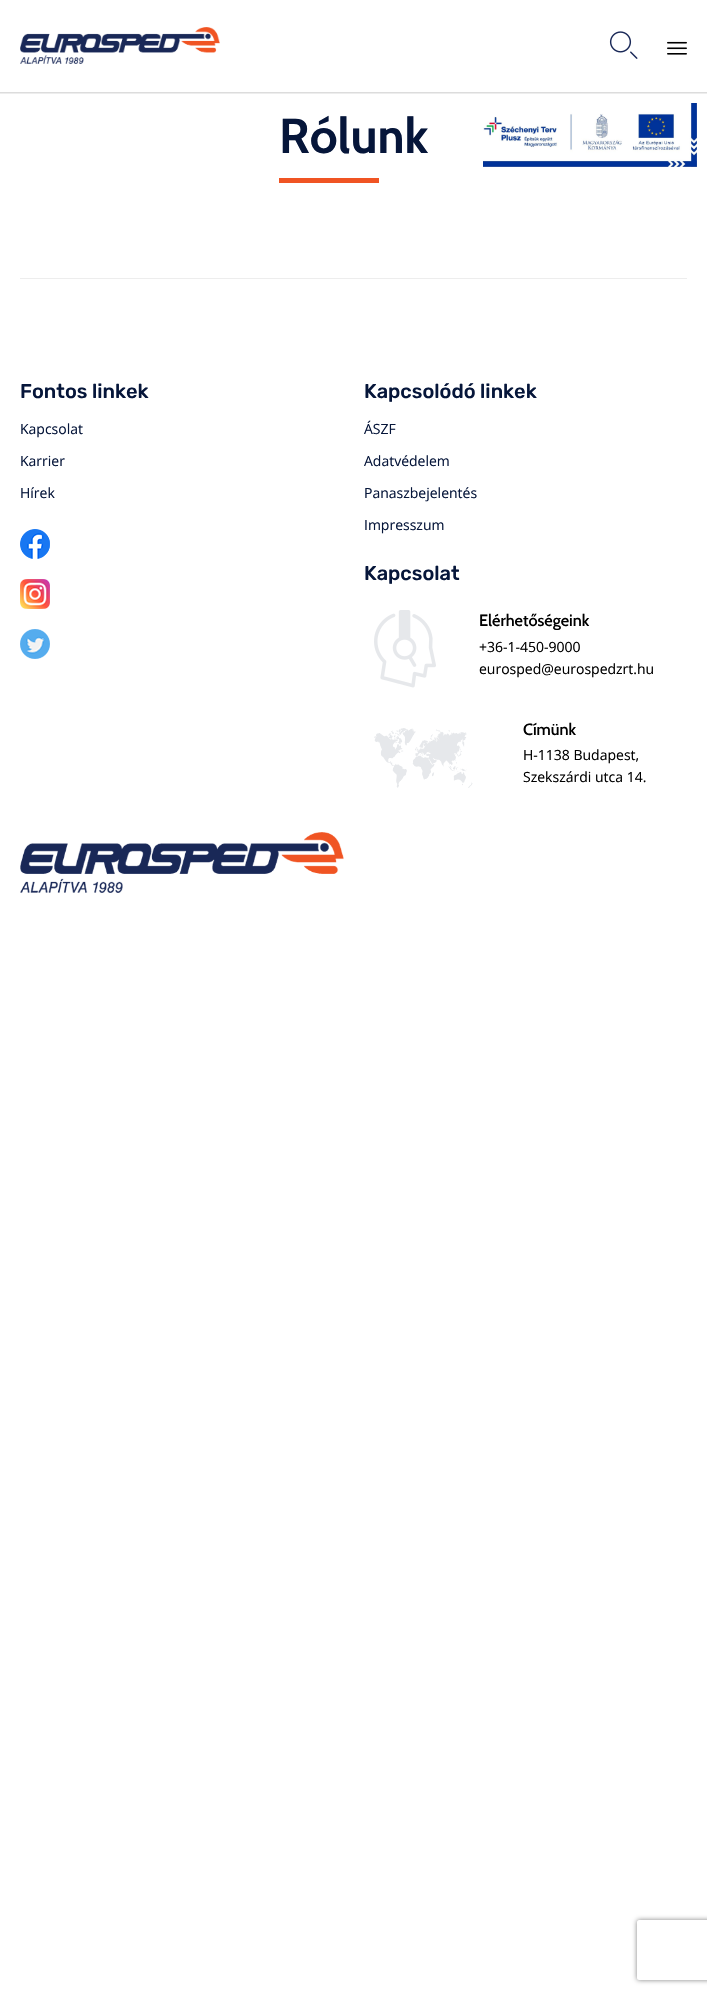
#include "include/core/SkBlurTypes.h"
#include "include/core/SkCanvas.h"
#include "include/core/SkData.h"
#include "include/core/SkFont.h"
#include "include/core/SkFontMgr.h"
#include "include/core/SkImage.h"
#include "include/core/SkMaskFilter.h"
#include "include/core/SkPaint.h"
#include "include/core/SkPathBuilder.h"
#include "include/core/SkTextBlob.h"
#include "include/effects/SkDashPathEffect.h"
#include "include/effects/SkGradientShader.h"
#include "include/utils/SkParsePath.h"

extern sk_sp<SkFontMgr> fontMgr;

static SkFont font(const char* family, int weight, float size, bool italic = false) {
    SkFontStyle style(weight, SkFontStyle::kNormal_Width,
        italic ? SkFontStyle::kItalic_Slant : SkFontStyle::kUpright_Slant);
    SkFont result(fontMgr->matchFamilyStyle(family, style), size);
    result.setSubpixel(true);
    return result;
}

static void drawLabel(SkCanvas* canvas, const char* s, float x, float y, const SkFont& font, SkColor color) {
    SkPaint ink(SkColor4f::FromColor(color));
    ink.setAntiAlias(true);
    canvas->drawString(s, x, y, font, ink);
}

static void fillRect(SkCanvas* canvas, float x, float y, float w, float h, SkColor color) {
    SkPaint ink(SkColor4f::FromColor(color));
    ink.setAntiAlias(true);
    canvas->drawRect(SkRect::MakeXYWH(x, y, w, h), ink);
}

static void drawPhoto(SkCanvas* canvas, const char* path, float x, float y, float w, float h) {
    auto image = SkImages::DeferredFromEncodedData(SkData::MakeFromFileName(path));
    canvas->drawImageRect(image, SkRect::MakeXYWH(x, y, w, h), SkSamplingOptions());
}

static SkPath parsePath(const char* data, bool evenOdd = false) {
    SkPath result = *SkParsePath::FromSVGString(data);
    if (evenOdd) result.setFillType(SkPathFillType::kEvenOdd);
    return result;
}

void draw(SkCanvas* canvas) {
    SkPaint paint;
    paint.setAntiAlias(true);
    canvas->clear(0xFFFFFFFF);
    fillRect(canvas, 0, 92, 707, 1, 0xFFDCDCDC);
    drawPhoto(canvas, "assets/img1.png", 20, 27, 200, 37);
    drawPhoto(canvas, "assets/img2.png", 609, 31, 29, 28);
    drawPhoto(canvas, "assets/img3.png", 667, 41, 20, 14);
    fillRect(canvas, 0, 93, 707, 1, 0xFFEDEDED);
    fillRect(canvas, 20, 278, 667, 1, 0xFFEDEDED);
    SkFont font1 = font("Cabin", 700, 49);
    drawLabel(canvas, "Rólunk", 279, 153, font1, 0xFF06163A);
    fillRect(canvas, 279, 178, 100, 5, 0xFFF05423);
    drawPhoto(canvas, "assets/img4.png", 483, 103, 214, 64);
    SkFont font2 = font("Rubik", 500, 20);
    drawLabel(canvas, "Fontos linkek", 20, 398, font2, 0xFF06163A);
    SkFont font3 = font("Open Sans", 400, 14);
    drawLabel(canvas, "Kapcsolat", 20, 434, font3, 0xFF06163A);
    drawLabel(canvas, "Karrier", 20, 466, font3, 0xFF06163A);
    drawLabel(canvas, "Hírek", 20, 498, font3, 0xFF06163A);
    drawPhoto(canvas, "assets/img5.png", 20, 529, 30, 30);
    drawPhoto(canvas, "assets/img6.png", 20, 579, 30, 30);
    drawPhoto(canvas, "assets/img7.png", 20, 629, 30, 30);
    drawLabel(canvas, "Kapcsolódó linkek", 364, 398, font2, 0xFF06163A);
    drawLabel(canvas, "ÁSZF", 364, 434, font3, 0xFF06163A);
    drawLabel(canvas, "Adatvédelem", 364, 466, font3, 0xFF06163A);
    drawLabel(canvas, "Panaszbejelentés", 364, 498, font3, 0xFF06163A);
    drawLabel(canvas, "Impresszum", 364, 530, font3, 0xFF06163A);
    drawLabel(canvas, "Kapcsolat", 364, 580, font2, 0xFF06163A);
    drawPhoto(canvas, "assets/img8.png", 374, 610, 62, 78);
    SkFont font4 = font("Cabin", 500, 16.25f);
    drawLabel(canvas, "Elérhetőségeink", 479, 626, font4, 0xFF000000);
    drawLabel(canvas, "+36-1-450-9000", 479, 652, font3, 0xFF000000);
    drawLabel(canvas, "eurosped@eurospedzrt.hu", 479, 674, font3, 0xFF000000);
    drawPhoto(canvas, "assets/img9.png", 374, 728, 99, 60);
    drawLabel(canvas, "Címünk", 523, 735, font4, 0xFF000000);
    drawLabel(canvas, "H-1138 Budapest,", 523, 760, font3, 0xFF000000);
    drawLabel(canvas, "Szekszárdi utca 14.", 523, 782, font3, 0xFF000000);
    drawPhoto(canvas, "assets/img10.png", 20, 832, 324, 61);
    canvas->save();
    canvas->clipPath(parsePath("M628 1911H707V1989H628ZM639 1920H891C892 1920 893 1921 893 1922V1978C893 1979 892 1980 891 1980H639C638 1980 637 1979 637 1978V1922C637 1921 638 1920 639 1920Z", true), true);
    paint.setColor(0xFF808080);
    paint.setMaskFilter(SkMaskFilter::MakeBlur(kNormal_SkBlurStyle, 2.5f));
    canvas->drawRoundRect(SkRect::MakeXYWH(637, 1920, 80, 60), 2, 2, paint);
    paint.setMaskFilter(nullptr);
    canvas->restore();
}
